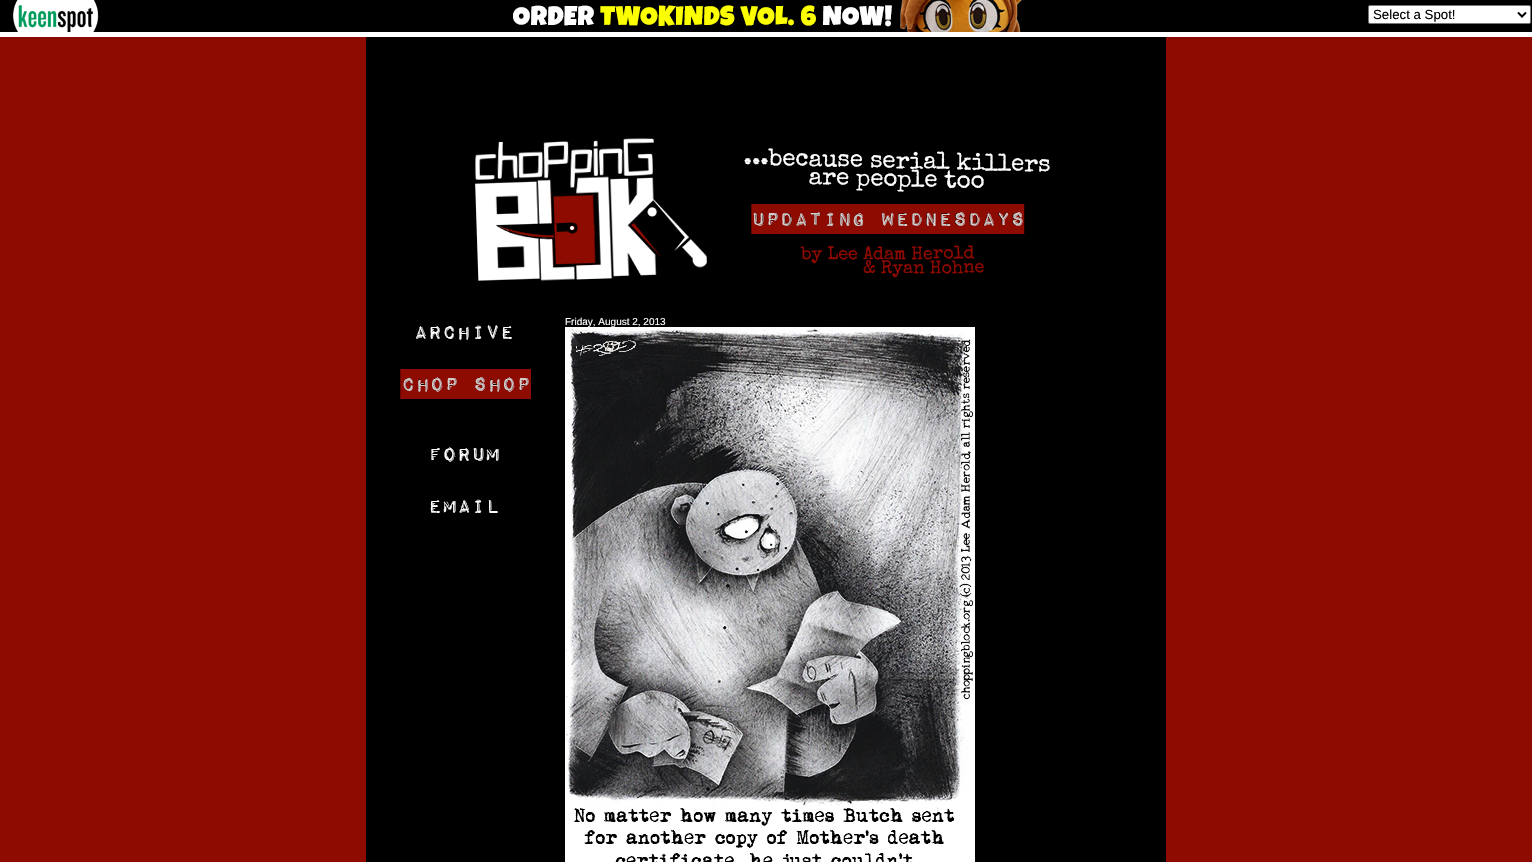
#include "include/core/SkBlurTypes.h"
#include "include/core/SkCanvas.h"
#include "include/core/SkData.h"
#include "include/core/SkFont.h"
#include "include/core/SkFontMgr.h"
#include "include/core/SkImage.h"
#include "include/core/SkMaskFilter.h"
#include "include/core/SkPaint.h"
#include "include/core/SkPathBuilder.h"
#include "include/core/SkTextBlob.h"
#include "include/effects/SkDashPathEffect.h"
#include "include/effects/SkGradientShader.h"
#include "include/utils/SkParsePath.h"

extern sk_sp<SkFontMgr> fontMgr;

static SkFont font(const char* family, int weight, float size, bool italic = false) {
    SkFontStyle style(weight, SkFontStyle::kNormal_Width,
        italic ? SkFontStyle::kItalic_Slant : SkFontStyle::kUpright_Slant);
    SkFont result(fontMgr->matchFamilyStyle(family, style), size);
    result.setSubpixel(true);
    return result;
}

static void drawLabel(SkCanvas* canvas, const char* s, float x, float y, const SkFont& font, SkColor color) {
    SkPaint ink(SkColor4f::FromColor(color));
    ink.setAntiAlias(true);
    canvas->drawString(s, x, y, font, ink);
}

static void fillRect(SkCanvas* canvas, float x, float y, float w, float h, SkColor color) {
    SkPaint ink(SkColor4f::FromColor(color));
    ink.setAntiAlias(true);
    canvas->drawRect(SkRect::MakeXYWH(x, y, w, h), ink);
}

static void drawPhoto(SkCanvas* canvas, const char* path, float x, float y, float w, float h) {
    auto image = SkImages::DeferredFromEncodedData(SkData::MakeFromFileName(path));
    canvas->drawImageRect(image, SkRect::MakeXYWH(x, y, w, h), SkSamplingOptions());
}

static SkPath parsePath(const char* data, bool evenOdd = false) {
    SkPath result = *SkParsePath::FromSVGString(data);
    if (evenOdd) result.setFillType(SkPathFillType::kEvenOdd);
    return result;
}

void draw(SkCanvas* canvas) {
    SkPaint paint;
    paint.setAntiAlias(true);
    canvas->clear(0xFF8D0B00);
    fillRect(canvas, 0, 0, 1532, 32, 0xFF000000);
    fillRect(canvas, 0, 32, 1532, 5, 0xFFFFFFFF);
    drawPhoto(canvas, "assets/img1.png", 13, 0, 86, 32);
    drawPhoto(canvas, "assets/img2.png", 513, 0, 509, 32);
    paint.setColor(0xFFFFFFFF);
    canvas->drawRoundRect(SkRect::MakeXYWH(1368.5f, 5.5f, 162, 18), 1.5f, 1.5f, paint);
    paint.setStroke(true);
    paint.setStrokeWidth(1);
    paint.setColor(0xFF767676);
    canvas->drawRoundRect(SkRect::MakeXYWH(1368.5f, 5.5f, 162, 18), 1.5f, 1.5f, paint);
    paint.setStrokeWidth(2);
    paint.setColor(0xFF000000);
    canvas->drawPath(parsePath("M1518 12.5L1522 16.5L1526 12.5"), paint);
    SkFont font1 = font("Liberation Sans", 400, 13.25f);
    drawLabel(canvas, "Select a Spot!", 1373, 19, font1, 0xFF000000);
    fillRect(canvas, 366, 37, 800, 825, 0xFF000000);
    drawPhoto(canvas, "assets/img3.png", 474, 138, 576, 143);
    SkFont font2 = font("Liberation Sans", 400, 10);
    drawLabel(canvas, "Friday, August 2, 2013", 565, 325, font2, 0xFFFFFFFF);
    drawPhoto(canvas, "assets/img4.png", 565, 327, 410, 535);
    drawPhoto(canvas, "assets/img5.png", 416, 325, 96, 15);
    drawPhoto(canvas, "assets/img6.png", 400, 369, 131, 30);
    drawPhoto(canvas, "assets/img7.png", 431, 447, 68, 15);
    drawPhoto(canvas, "assets/img8.png", 430, 499, 68, 14);
}
